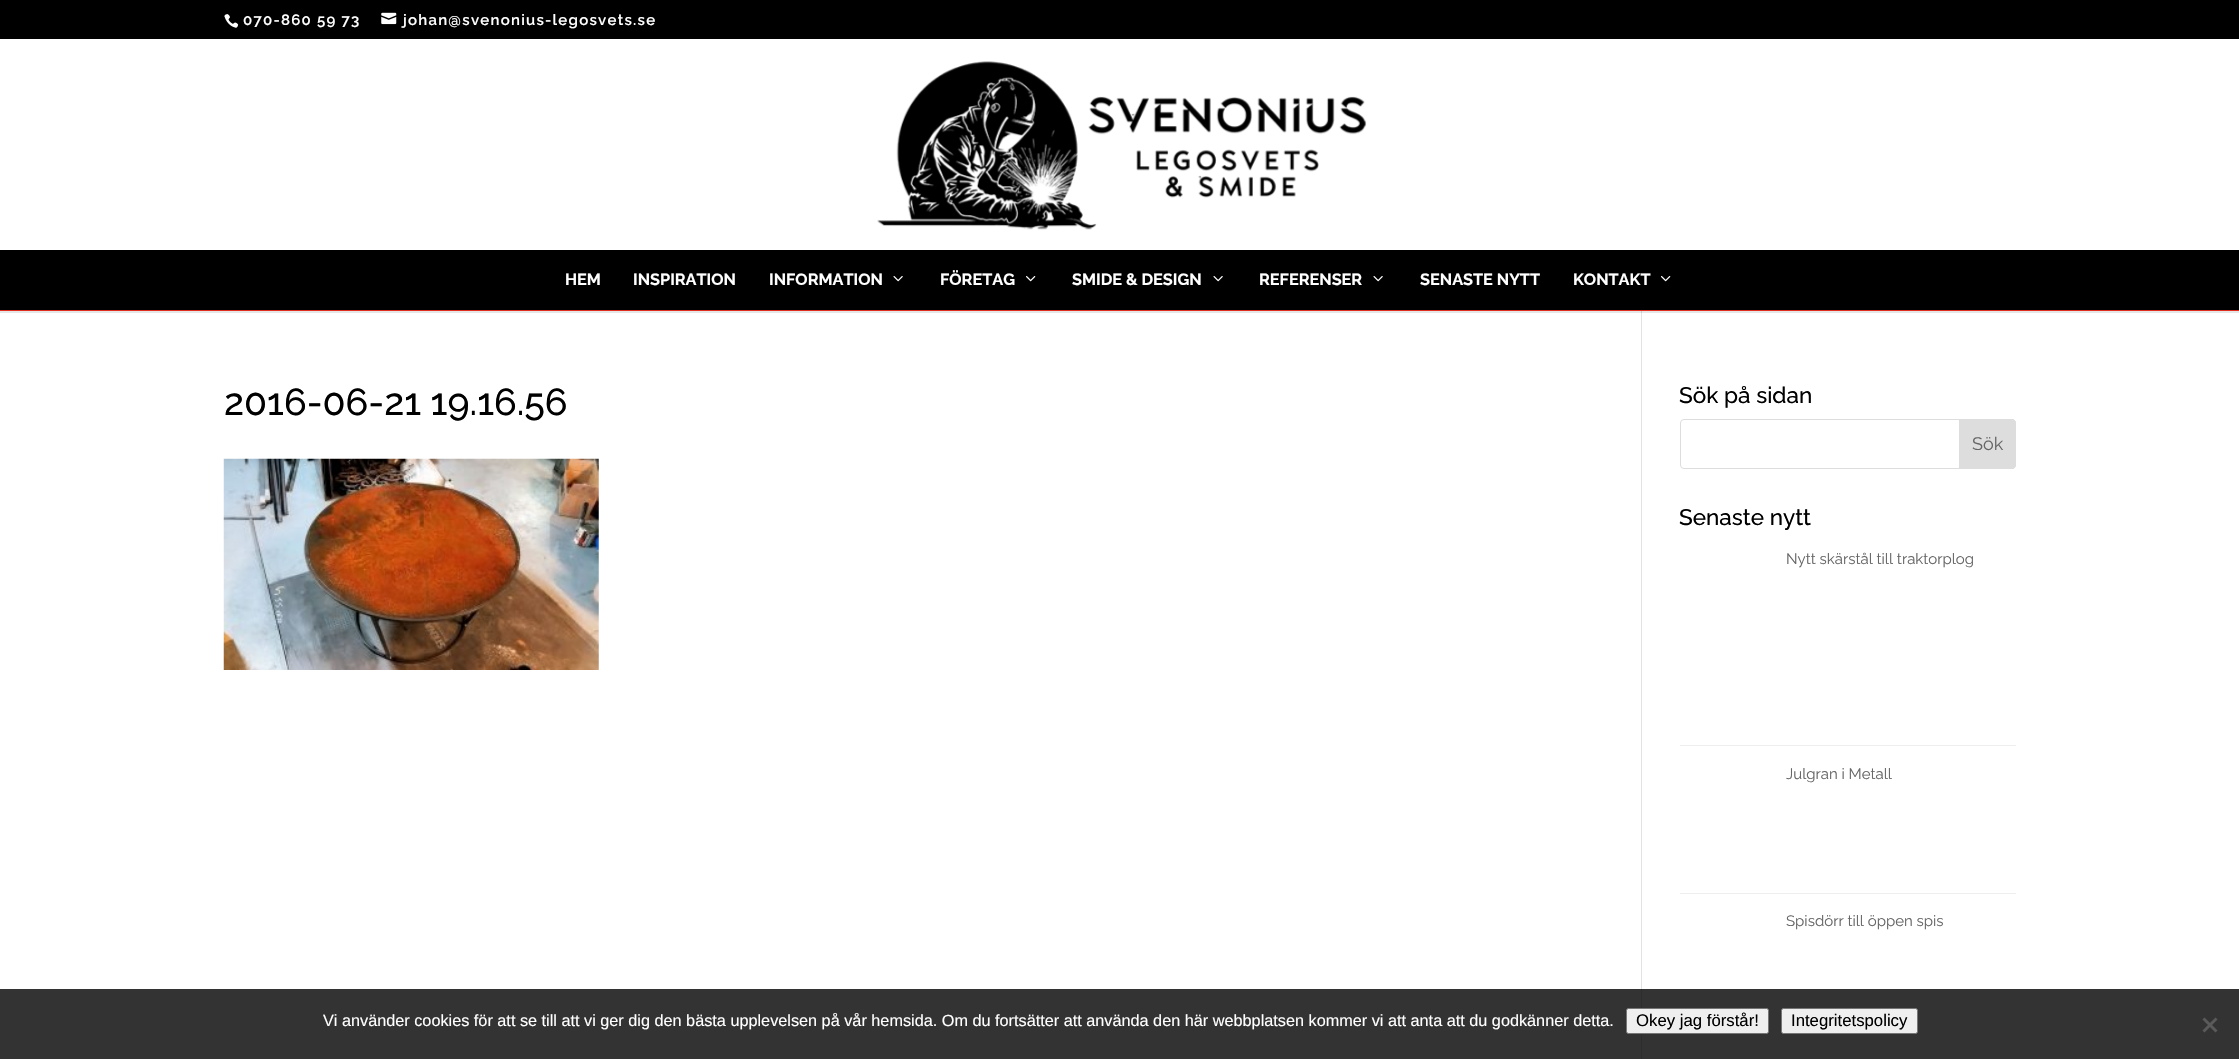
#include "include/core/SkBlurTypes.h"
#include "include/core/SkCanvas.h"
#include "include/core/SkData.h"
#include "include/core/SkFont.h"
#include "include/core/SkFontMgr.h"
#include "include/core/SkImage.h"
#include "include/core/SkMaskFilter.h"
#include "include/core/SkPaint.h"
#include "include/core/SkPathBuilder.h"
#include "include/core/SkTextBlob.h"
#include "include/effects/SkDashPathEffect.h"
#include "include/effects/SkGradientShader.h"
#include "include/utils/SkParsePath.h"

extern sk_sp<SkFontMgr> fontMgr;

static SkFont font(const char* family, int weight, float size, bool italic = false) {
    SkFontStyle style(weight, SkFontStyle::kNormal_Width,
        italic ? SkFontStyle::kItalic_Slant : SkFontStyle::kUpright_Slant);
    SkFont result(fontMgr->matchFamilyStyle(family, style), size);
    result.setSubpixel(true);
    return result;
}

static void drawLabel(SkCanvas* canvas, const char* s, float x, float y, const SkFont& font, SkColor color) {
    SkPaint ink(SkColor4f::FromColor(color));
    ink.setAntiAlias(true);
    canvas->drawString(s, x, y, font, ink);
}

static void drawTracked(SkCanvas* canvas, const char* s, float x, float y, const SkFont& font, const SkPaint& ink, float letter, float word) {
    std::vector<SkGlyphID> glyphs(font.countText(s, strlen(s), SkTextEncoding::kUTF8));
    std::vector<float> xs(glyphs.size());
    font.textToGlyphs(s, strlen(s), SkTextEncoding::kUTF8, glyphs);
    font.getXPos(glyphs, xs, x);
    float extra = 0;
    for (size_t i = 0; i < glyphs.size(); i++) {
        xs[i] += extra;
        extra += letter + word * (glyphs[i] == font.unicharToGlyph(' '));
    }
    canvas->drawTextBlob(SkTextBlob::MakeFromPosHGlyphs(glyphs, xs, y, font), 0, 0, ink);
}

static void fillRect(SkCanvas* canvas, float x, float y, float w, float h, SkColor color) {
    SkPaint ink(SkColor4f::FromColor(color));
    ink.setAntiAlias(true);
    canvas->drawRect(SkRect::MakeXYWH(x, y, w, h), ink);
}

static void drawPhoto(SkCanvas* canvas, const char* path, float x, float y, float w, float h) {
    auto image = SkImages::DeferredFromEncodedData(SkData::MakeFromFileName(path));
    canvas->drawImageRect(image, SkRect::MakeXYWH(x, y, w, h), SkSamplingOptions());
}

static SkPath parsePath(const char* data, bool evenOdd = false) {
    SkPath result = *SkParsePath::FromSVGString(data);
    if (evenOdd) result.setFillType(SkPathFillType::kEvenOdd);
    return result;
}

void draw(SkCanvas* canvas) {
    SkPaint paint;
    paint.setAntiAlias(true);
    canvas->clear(0xFFFFFFFF);
    fillRect(canvas, 0, 989, 2239, 70, 0xFF333333);
    fillRect(canvas, 0, 311, 2239, 2, 0xFFE6E6E6);
    fillRect(canvas, 0, 0, 2239, 39, 0xFF000000);
    drawPhoto(canvas, "assets/img1.png", 224, 14, 15, 14);
    SkFont font1 = font("Raleway", 600, 15);
    paint.setColor(0xFFFFFFFF);
    drawTracked(canvas, "070-860 59 73", 243, 25, font1, paint, 1.25f, 0);
    drawPhoto(canvas, "assets/img2.png", 381, 12, 16, 13);
    drawTracked(canvas, "johan@svenonius-legosvets.se", 403, 25, font1, paint, 1.25f, 0);
    drawPhoto(canvas, "assets/img3.png", 877, 61, 490, 169);
    fillRect(canvas, 0, 250, 2239, 60, 0xFF000000);
    fillRect(canvas, 0, 310, 2239, 1, 0xFFE02B20);
    SkFont font2 = font("Raleway", 700, 16.25f);
    drawLabel(canvas, "HEM", 565, 285, font2, 0xFFFFFFFF);
    drawLabel(canvas, "INSPIRATION", 633, 285, font2, 0xFFFFFFFF);
    drawLabel(canvas, "INFORMATION", 769, 285, font2, 0xFFFFFFFF);
    drawPhoto(canvas, "assets/img4.png", 893, 276, 10, 6);
    drawLabel(canvas, "FÖRETAG", 940, 285, font2, 0xFFFFFFFF);
    drawPhoto(canvas, "assets/img5.png", 1026, 276, 10, 6);
    drawLabel(canvas, "SMIDE & DESIGN", 1072, 285, font2, 0xFFFFFFFF);
    drawPhoto(canvas, "assets/img4.png", 1213, 276, 10, 6);
    drawLabel(canvas, "REFERENSER", 1259, 285, font2, 0xFFFFFFFF);
    drawPhoto(canvas, "assets/img4.png", 1373, 276, 10, 6);
    drawLabel(canvas, "SENASTE NYTT", 1420, 285, font2, 0xFFFFFFFF);
    drawLabel(canvas, "KONTAKT", 1573, 285, font2, 0xFFFFFFFF);
    drawPhoto(canvas, "assets/img5.png", 1661, 276, 10, 6);
    fillRect(canvas, 1641, 311, 1, 678, 0xFFE2E2E2);
    fillRect(canvas, 1641, 989, 1, 70, 0xFF2D2D2D);
    fillRect(canvas, 1641, 311, 1, 2, 0xFFCBCBCB);
    SkFont font3 = font("Raleway", 500, 37.5f);
    drawLabel(canvas, "2016-06-21 19.16.56", 224, 415, font3, 0xFF000000);
    drawPhoto(canvas, "assets/img6.png", 223, 458, 376, 212);
    SkFont font4 = font("Raleway", 500, 22.5f);
    drawLabel(canvas, "Sök på sidan", 1679, 403, font4, 0xFF000000);
    paint.setStroke(true);
    paint.setStrokeWidth(1);
    paint.setColor(0xFFDDDDDD);
    canvas->drawRoundRect(SkRect::MakeXYWH(1680.5f, 419.5f, 335, 49), 3.5f, 3.5f, paint);
    paint.setStroke(false);
    canvas->drawPath(parsePath("M1959.5 419.5H2012C2014 419.5 2015.5 421 2015.5 423V465C2015.5 467 2014 468.5 2012 468.5H1959.5Z"), paint);
    paint.setStroke(true);
    canvas->drawPath(parsePath("M1959.5 419.5H2012C2014 419.5 2015.5 421 2015.5 423V465C2015.5 467 2014 468.5 2012 468.5H1959.5Z"), paint);
    SkFont font5 = font("Raleway", 400, 18);
    drawLabel(canvas, "Sök", 1972, 450, font5, 0xFF666666);
    drawLabel(canvas, "Senaste nytt", 1679, 525, font4, 0xFF000000);
    fillRect(canvas, 1680, 745, 336, 1, 0xFFEEEEEE);
    SkFont font6 = font("Raleway", 400, 15);
    drawLabel(canvas, "Nytt skärstål till traktorplog", 1786, 564, font6, 0xFF666666);
    fillRect(canvas, 1680, 893, 336, 1, 0xFFEEEEEE);
    drawLabel(canvas, "Julgran i Metall", 1786, 779, font6, 0xFF666666);
    drawLabel(canvas, "Spisdörr till öppen spis", 1786, 926, font6, 0xFF666666);
    SkFont font7 = font("Liberation Sans", 400, 16.25f);
    drawLabel(canvas, "Vi använder cookies för att se till att vi ger dig den bästa upplevelsen på vår hemsida. Om du fortsätter att använda den här webbplatsen kommer vi att anta att du godkänner detta.", 323, 1026, font7, 0xFFFFFFFF);
    paint.setStroke(false);
    paint.setColor(0xFFEFEFEF);
    canvas->drawRoundRect(SkRect::MakeXYWH(1626.5f, 1008.5f, 142, 25), 2, 2, paint);
    paint.setStroke(true);
    paint.setColor(0xFF767676);
    canvas->drawRoundRect(SkRect::MakeXYWH(1626.5f, 1008.5f, 142, 25), 2, 2, paint);
    SkFont font8 = font("Liberation Sans", 400, 16.75f);
    drawLabel(canvas, "Okey jag förstår!", 1636, 1026, font8, 0xFF000000);
    paint.setStroke(false);
    paint.setColor(0xFFEFEFEF);
    canvas->drawRoundRect(SkRect::MakeXYWH(1781.5f, 1008.5f, 136, 25), 2, 2, paint);
    paint.setStroke(true);
    paint.setColor(0xFF767676);
    canvas->drawRoundRect(SkRect::MakeXYWH(1781.5f, 1008.5f, 136, 25), 2, 2, paint);
    drawLabel(canvas, "Integritetspolicy", 1791, 1026, font8, 0xFF000000);
    paint.setStroke(false);
    paint.setColor(0xFF5A5A5A);
    canvas->drawPath(parsePath("M2215.5 1017.5L2217.5 1019.5L2204.5 1032.5L2202.5 1030.5Z"), paint);
    canvas->drawPath(parsePath("M2202.5 1019.5L2204.5 1017.5L2217.5 1030.5L2215.5 1032.5Z"), paint);
}
